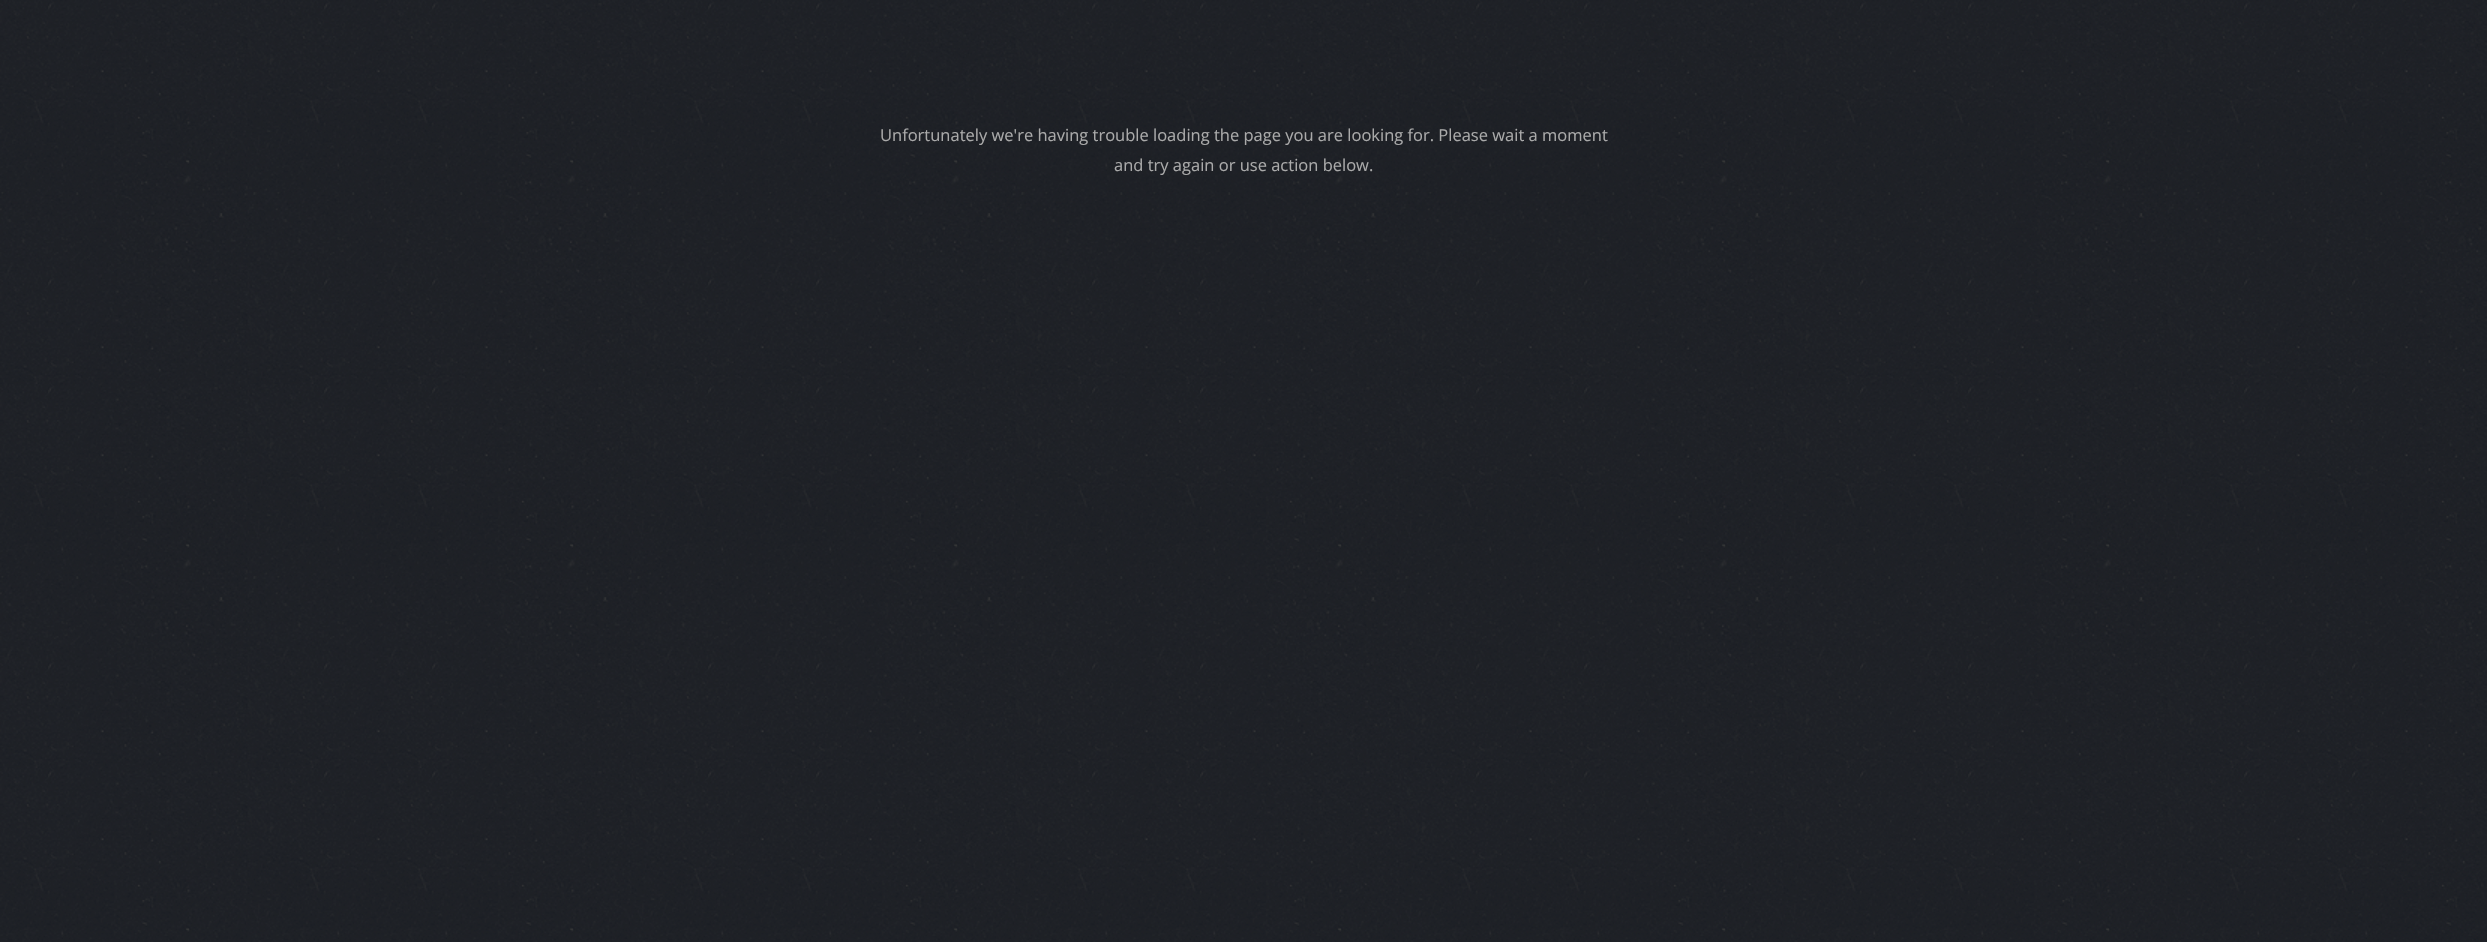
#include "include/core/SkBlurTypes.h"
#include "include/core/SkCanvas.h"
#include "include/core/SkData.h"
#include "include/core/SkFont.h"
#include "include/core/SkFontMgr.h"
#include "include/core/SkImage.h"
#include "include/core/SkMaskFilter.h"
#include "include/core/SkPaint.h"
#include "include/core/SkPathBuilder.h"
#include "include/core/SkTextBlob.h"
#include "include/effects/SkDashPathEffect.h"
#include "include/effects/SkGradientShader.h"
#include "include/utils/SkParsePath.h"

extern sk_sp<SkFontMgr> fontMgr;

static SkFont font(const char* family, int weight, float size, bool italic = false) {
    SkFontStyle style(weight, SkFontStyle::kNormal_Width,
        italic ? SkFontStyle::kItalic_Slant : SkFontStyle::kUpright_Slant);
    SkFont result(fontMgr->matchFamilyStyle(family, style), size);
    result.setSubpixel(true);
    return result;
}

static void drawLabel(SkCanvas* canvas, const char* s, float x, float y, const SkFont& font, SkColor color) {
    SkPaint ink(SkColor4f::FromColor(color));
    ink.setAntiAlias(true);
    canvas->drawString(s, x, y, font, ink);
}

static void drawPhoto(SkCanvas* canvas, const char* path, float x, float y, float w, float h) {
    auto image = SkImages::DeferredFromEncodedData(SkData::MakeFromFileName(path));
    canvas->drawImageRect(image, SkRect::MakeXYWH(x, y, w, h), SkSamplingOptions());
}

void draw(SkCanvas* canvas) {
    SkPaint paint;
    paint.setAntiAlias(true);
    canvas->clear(0xFF1B1E24);
    drawPhoto(canvas, "assets/img1.png", 0, 0, 2487, 942);
    SkFont font1 = font("Open Sans", 400, 16.5f);
    drawLabel(canvas, "Unfortunately we're having trouble loading the page you are looking for. Please wait a moment", 880, 141, font1, 0xFFAAAAAA);
    drawLabel(canvas, "and try again or use action below.", 1114, 171, font1, 0xFFAAAAAA);
}
